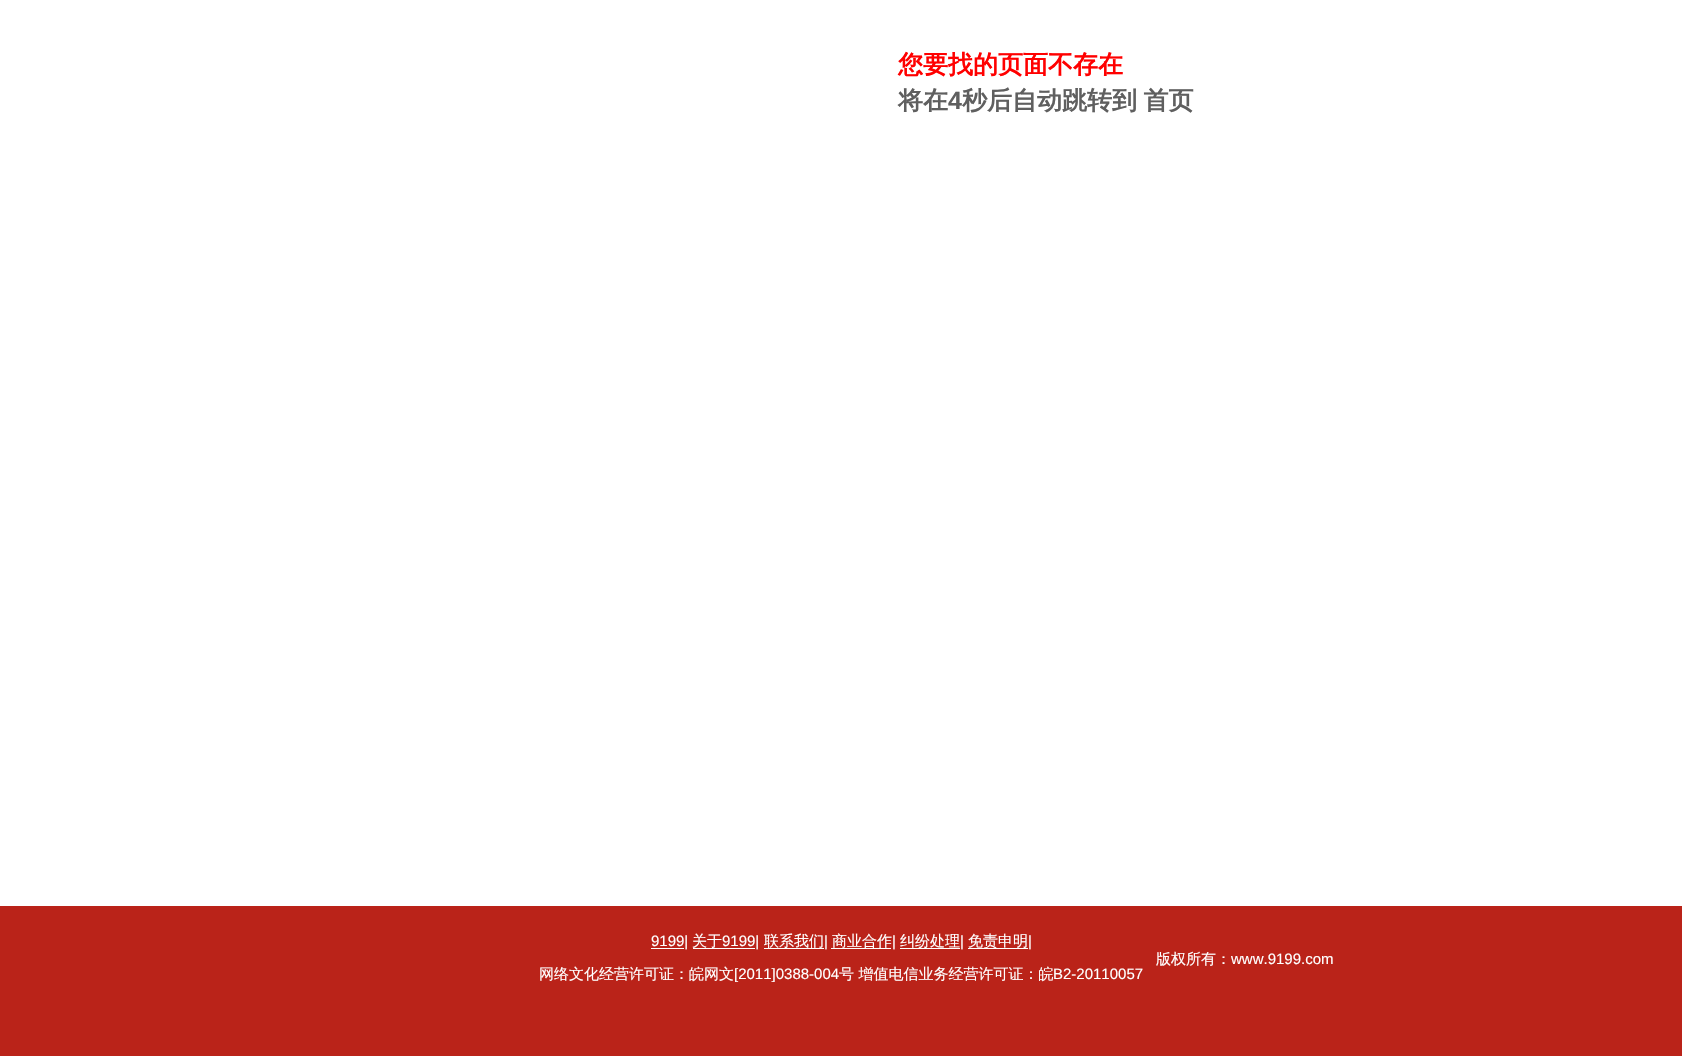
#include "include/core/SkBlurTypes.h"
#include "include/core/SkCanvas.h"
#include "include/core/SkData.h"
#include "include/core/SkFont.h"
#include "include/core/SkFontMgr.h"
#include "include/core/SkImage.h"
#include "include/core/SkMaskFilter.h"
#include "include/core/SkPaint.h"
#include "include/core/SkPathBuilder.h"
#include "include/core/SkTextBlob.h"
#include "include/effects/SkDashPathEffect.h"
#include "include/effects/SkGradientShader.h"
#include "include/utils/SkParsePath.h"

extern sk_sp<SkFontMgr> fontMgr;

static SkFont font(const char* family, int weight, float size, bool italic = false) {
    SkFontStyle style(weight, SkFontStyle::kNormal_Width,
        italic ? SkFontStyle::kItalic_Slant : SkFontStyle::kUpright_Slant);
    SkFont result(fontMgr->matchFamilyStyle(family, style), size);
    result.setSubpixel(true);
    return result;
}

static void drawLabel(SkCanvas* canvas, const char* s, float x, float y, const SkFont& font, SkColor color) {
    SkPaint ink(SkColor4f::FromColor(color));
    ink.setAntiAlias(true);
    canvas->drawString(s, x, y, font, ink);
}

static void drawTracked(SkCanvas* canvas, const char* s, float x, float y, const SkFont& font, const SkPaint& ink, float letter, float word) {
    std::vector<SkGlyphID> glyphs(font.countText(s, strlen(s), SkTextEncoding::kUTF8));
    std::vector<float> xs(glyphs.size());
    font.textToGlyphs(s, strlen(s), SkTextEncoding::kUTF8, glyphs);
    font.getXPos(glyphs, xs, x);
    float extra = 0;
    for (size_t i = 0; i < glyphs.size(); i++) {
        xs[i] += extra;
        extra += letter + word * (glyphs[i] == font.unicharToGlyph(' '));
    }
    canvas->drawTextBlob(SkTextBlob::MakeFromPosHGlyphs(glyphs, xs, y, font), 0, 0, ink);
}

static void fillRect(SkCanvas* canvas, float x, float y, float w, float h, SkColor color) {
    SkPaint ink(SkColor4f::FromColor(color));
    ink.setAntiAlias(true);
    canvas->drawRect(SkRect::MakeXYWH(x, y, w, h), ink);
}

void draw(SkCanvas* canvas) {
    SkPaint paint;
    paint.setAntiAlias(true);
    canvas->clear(0xFFFFFFFF);
    SkFont font1 = font("WenQuanYi Zen Hei", 700, 25);
    drawLabel(canvas, "您要找的页面不存在", 898, 73, font1, 0xFFFF0000);
    drawLabel(canvas, "将在", 898, 109, font1, 0xFF5F5F5F);
    SkFont font2 = font("Liberation Sans", 700, 25);
    drawLabel(canvas, "4", 948, 109, font2, 0xFF5F5F5F);
    paint.setColor(0xFF5F5F5F);
    drawTracked(canvas, "秒后自动跳转到 首页", 962, 109, font1, paint, 0, -1);
    fillRect(canvas, 0, 906, 1682, 150, 0xFFBA2319);
    fillRect(canvas, 651, 948, 33, 1, 0xFFFFFFFF);
    SkFont font3 = font("Liberation Sans", 400, 15);
    drawLabel(canvas, "9199|", 651, 946, font3, 0xFFFFFFFF);
    SkFont font4 = font("WenQuanYi Zen Hei", 500, 15);
    drawLabel(canvas, "关于", 692, 946, font4, 0xFFFFFFFF);
    fillRect(canvas, 693, 948, 62, 1, 0xFFFFFFFF);
    drawLabel(canvas, "9199|", 722, 946, font3, 0xFFFFFFFF);
    drawLabel(canvas, "联系我们", 764, 946, font4, 0xFFFFFFFF);
    drawLabel(canvas, "|", 824, 946, font3, 0xFFFFFFFF);
    fillRect(canvas, 764, 948, 60, 1, 0xFFFFFFFF);
    fillRect(canvas, 831, 948, 60, 1, 0xFFFFFFFF);
    drawLabel(canvas, "商业合作", 832, 946, font4, 0xFFFFFFFF);
    drawLabel(canvas, "|", 892, 946, font3, 0xFFFFFFFF);
    fillRect(canvas, 900, 948, 60, 1, 0xFFFFFFFF);
    drawLabel(canvas, "纠纷处理", 900, 946, font4, 0xFFFFFFFF);
    drawLabel(canvas, "|", 960, 946, font3, 0xFFFFFFFF);
    fillRect(canvas, 968, 948, 60, 1, 0xFFFFFFFF);
    drawLabel(canvas, "免责申明", 968, 946, font4, 0xFFFFFFFF);
    drawLabel(canvas, "|", 1028, 946, font3, 0xFFFFFFFF);
    drawLabel(canvas, "版权所有：", 1156, 964, font4, 0xFFFFFFFF);
    drawLabel(canvas, "www.9199.com", 1231, 964, font3, 0xFFFFFFFF);
    drawLabel(canvas, "网络文化经营许可证：皖网文", 539, 979, font4, 0xFFFFFFFF);
    drawLabel(canvas, "[2011]0388-004", 734, 979, font3, 0xFFFFFFFF);
    drawLabel(canvas, "号 增值电信业务经营许可证：皖", 839, 979, font4, 0xFFFFFFFF);
    drawLabel(canvas, "B2-20110057", 1053, 979, font3, 0xFFFFFFFF);
}
